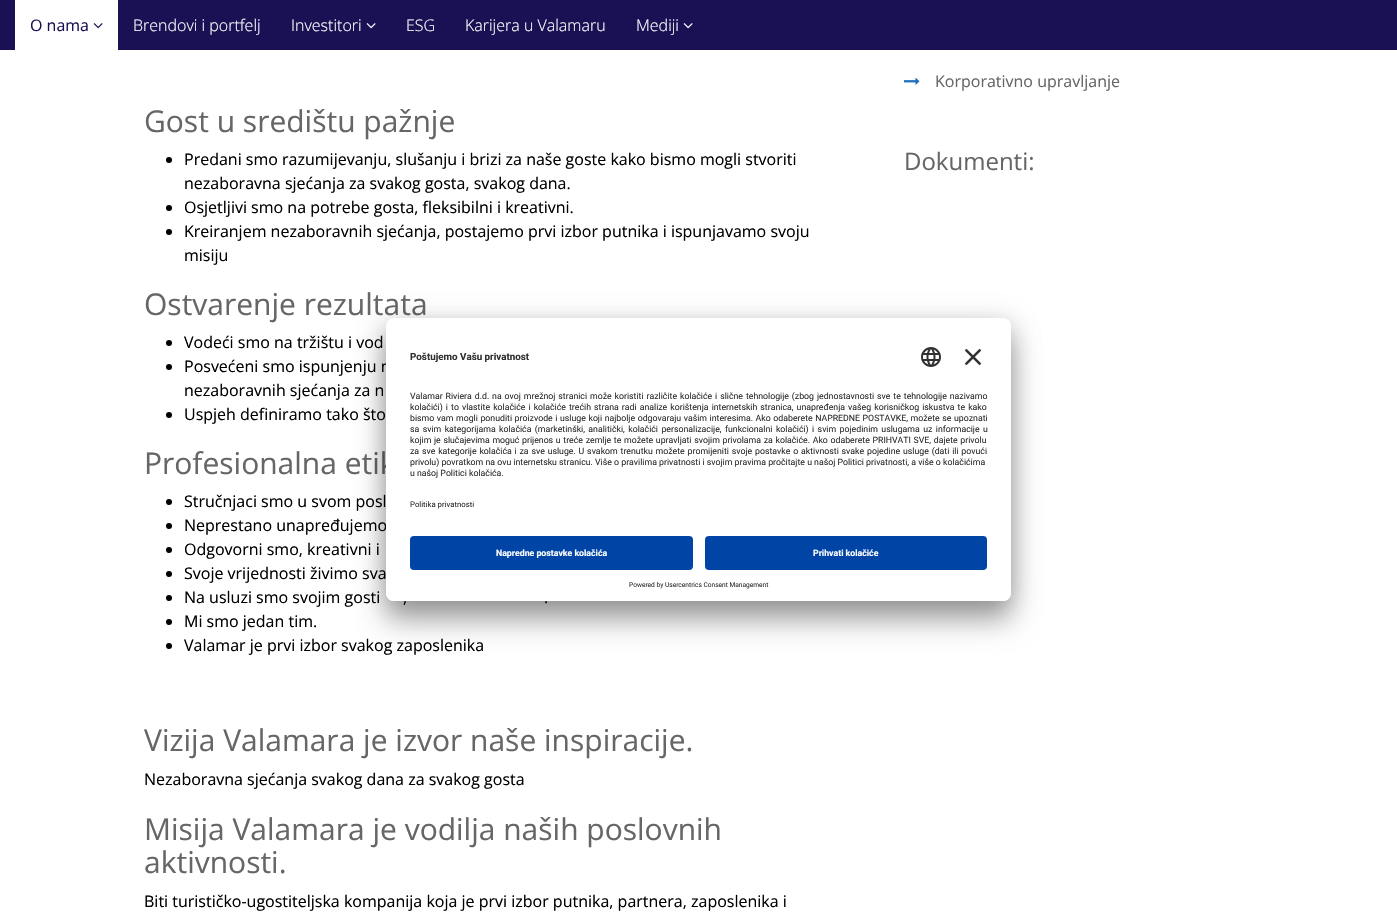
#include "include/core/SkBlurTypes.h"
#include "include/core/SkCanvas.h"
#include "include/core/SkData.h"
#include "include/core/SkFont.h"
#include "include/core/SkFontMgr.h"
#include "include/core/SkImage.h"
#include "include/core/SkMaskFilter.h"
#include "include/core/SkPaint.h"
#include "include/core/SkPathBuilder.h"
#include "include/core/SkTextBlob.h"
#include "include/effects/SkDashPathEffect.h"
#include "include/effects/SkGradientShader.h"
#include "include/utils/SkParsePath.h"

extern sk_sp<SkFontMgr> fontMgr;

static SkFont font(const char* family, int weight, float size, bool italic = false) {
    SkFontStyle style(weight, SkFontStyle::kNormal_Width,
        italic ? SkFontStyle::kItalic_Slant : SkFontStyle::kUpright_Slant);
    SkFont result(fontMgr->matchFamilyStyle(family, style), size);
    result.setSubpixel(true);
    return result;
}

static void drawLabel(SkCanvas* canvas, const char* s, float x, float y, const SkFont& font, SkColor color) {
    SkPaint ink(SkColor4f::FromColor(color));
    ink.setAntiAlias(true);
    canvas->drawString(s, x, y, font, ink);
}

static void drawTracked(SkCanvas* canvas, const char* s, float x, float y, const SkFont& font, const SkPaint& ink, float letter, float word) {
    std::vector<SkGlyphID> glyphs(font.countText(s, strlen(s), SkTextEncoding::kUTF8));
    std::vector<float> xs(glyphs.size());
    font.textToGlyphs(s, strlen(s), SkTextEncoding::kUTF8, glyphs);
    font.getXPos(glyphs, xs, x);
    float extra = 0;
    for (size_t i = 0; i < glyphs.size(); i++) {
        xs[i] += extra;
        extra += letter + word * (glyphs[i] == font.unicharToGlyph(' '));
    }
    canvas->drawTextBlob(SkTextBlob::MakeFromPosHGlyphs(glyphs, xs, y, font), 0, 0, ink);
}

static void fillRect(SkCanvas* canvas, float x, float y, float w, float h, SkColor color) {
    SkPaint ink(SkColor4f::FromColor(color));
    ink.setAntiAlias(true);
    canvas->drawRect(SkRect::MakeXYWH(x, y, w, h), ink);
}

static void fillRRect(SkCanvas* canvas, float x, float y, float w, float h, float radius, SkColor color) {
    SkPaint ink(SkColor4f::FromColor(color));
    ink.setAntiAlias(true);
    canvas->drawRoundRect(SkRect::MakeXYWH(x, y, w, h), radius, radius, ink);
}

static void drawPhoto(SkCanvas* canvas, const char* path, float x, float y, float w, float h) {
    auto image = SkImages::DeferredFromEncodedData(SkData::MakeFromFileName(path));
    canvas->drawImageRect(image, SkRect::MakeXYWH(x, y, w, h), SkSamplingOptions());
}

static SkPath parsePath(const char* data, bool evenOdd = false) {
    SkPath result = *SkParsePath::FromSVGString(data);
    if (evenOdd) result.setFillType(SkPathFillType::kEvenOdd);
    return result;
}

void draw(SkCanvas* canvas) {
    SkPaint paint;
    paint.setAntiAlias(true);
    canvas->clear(0xFFFFFFFF);
    fillRect(canvas, 0, 0, 1397, 50, 0xFF1A1154);
    fillRect(canvas, 15, 0, 103, 50, 0xFFFFFFFF);
    SkFont font1 = font("Open Sans", 400, 16);
    drawLabel(canvas, "O nama", 30, 31, font1, 0xFF1A1154);
    drawPhoto(canvas, "assets/img1.png", 93, 23, 10, 6);
    SkFont font2 = font("Open Sans", 300, 16);
    drawLabel(canvas, "Brendovi i portfelj", 133, 31, font2, 0xFFFFFFFF);
    drawLabel(canvas, "Investitori", 291, 31, font2, 0xFFFFFFFF);
    drawPhoto(canvas, "assets/img2.png", 366, 23, 10, 6);
    drawLabel(canvas, "ESG", 406, 31, font2, 0xFFFFFFFF);
    drawLabel(canvas, "Karijera u Valamaru", 465, 31, font2, 0xFFFFFFFF);
    drawLabel(canvas, "Mediji", 636, 31, font2, 0xFFFFFFFF);
    drawPhoto(canvas, "assets/img2.png", 683, 23, 10, 6);
    SkFont font3 = font("Open Sans", 400, 30);
    drawLabel(canvas, "Gost u središtu pažnje", 144, 132, font3, 0xFF666666);
    paint.setColor(0xFF000000);
    canvas->drawCircle(169, 160, 3, paint);
    drawLabel(canvas, "Predani smo razumijevanju, slušanju i brizi za naše goste kako bismo mogli stvoriti", 184, 165, font1, 0xFF000000);
    drawLabel(canvas, "nezaboravna sjećanja za svakog gosta, svakog dana.", 184, 189, font1, 0xFF000000);
    canvas->drawCircle(169, 208, 3, paint);
    drawLabel(canvas, "Osjetljivi smo na potrebe gosta, fleksibilni i kreativni.", 184, 213, font1, 0xFF000000);
    canvas->drawCircle(169, 232, 3, paint);
    drawLabel(canvas, "Kreiranjem nezaboravnih sjećanja, postajemo prvi izbor putnika i ispunjavamo svoju", 184, 237, font1, 0xFF000000);
    drawLabel(canvas, "misiju", 184, 261, font1, 0xFF000000);
    drawLabel(canvas, "Ostvarenje rezultata", 144, 315, font3, 0xFF666666);
    canvas->drawCircle(169, 343, 3, paint);
    drawLabel(canvas, "Vodeći smo na tržištu i vod", 184, 348, font1, 0xFF000000);
    canvas->drawCircle(169, 367, 3, paint);
    drawLabel(canvas, "Posvećeni smo ispunjenju n", 184, 372, font1, 0xFF000000);
    drawLabel(canvas, "nezaboravnih sjećanja za n", 184, 396, font1, 0xFF000000);
    canvas->drawCircle(169, 415, 3, paint);
    drawLabel(canvas, "Uspjeh definiramo tako što", 184, 420, font1, 0xFF000000);
    drawLabel(canvas, "Profesionalna etik", 144, 474, font3, 0xFF666666);
    canvas->drawCircle(169, 502, 3, paint);
    drawLabel(canvas, "Stručnjaci smo u svom posl", 184, 507, font1, 0xFF000000);
    canvas->drawCircle(169, 526, 3, paint);
    drawLabel(canvas, "Neprestano unapređujemo", 184, 531, font1, 0xFF000000);
    canvas->drawCircle(169, 550, 3, paint);
    drawLabel(canvas, "Odgovorni smo, kreativni i", 184, 555, font1, 0xFF000000);
    canvas->drawCircle(169, 574, 3, paint);
    drawLabel(canvas, "Svoje vrijednosti živimo sva", 184, 579, font1, 0xFF000000);
    canvas->drawCircle(169, 598, 3, paint);
    drawLabel(canvas, "Na usluzi smo svojim gosti", 184, 603, font1, 0xFF000000);
    drawLabel(canvas, ",", 403, 603, font1, 0xFF000000);
    drawLabel(canvas, ".", 544, 603, font1, 0xFF000000);
    canvas->drawCircle(169, 622, 3, paint);
    drawLabel(canvas, "Mi smo jedan tim.", 184, 627, font1, 0xFF000000);
    canvas->drawCircle(169, 646, 3, paint);
    drawLabel(canvas, "Valamar je prvi izbor svakog zaposlenika", 184, 651, font1, 0xFF000000);
    drawLabel(canvas, "Vizija Valamara je izvor naše inspiracije.", 144, 751, font3, 0xFF666666);
    drawLabel(canvas, "Nezaboravna sjećanja svakog dana za svakog gosta", 144, 785, font1, 0xFF000000);
    drawLabel(canvas, "Misija Valamara je vodilja naših poslovnih", 144, 840, font3, 0xFF666666);
    drawLabel(canvas, "aktivnosti.", 144, 873, font3, 0xFF666666);
    drawLabel(canvas, "Biti turističko-ugostiteljska kompanija koja je prvi izbor putnika, partnera, zaposlenika i", 144, 907, font1, 0xFF000000);
    drawPhoto(canvas, "assets/img3.png", 904, 77, 16, 8);
    drawLabel(canvas, "Korporativno upravljanje", 935, 87, font1, 0xFF666666);
    SkFont font4 = font("Open Sans", 400, 24);
    drawLabel(canvas, "Dokumenti:", 904, 170, font4, 0xFF666666);
    paint.setColor(0x4D000000);
    paint.setMaskFilter(SkMaskFilter::MakeBlur(kNormal_SkBlurStyle, 14));
    canvas->drawRoundRect(SkRect::MakeXYWH(386, 338, 625, 283), 8, 8, paint);
    paint.setMaskFilter(nullptr);
    paint.setColor(0x38000000);
    paint.setMaskFilter(SkMaskFilter::MakeBlur(kNormal_SkBlurStyle, 13));
    canvas->drawRoundRect(SkRect::MakeXYWH(386, 323, 625, 283), 8, 8, paint);
    paint.setMaskFilter(nullptr);
    fillRRect(canvas, 386, 318, 625, 283, 8, 0xFFFFFFFF);
    SkFont font5 = font("Roboto", 700, 9.8f);
    drawLabel(canvas, "Poštujemo Vašu privatnost", 410, 360, font5, 0xFF303030);
    drawPhoto(canvas, "assets/img4.png", 921, 347, 20, 20);
    drawPhoto(canvas, "assets/img5.png", 965, 349, 16, 16);
    SkFont font6 = font("Roboto", 400, 8.75f);
    paint.setColor(0xFF303030);
    drawTracked(canvas, "Valamar Riviera d.d. na ovoj mrežnoj stranici može koristiti različite kolačiće i slične tehnologije (zbog jednostavnosti sve te tehnologije nazivamo", 410, 399, font6, paint, 0, 0.75f);
    drawTracked(canvas, "kolačići) i to vlastite kolačiće i kolačiće trećih strana radi analize korištenja internetskih stranica, unapređenja vašeg korisničkog iskustva te kako", 410, 410, font6, paint, 0, 0.9f);
    drawTracked(canvas, "bismo vam mogli ponuditi proizvode i usluge koji najbolje odgovaraju vašim interesima. Ako odaberete NAPREDNE POSTAVKE, možete se upoznati", 410, 421, font6, paint, 0, 0.4f);
    drawTracked(canvas, "sa svim kategorijama kolačića (marketinški, analitički, kolačići personalizacije, funkcionalni kolačići) i svim pojedinim uslugama uz informacije u", 410, 432, font6, paint, 0, 1.25f);
    drawTracked(canvas, "kojim je slučajevima moguć prijenos u treće zemlje te možete upravljati svojim privolama za kolačiće. Ako odaberete PRIHVATI SVE, dajete privolu", 410, 443, font6, paint, 0, 0.5f);
    drawTracked(canvas, "za sve kategorije kolačića i za sve usluge. U svakom trenutku možete promijeniti svoje postavke o aktivnosti svake pojedine usluge (dati ili povući", 410, 454, font6, paint, 0, 0.65f);
    drawLabel(canvas, "privolu) povratkom na ovu internetsku stranicu. Više o pravilima privatnosti i svojim pravima pročitajte u našoj Politici privatnosti, a više o kolačićima", 410, 465, font6, 0xFF303030);
    drawLabel(canvas, "u našoj Politici kolačića.", 410, 476, font6, 0xFF303030);
    SkFont font7 = font("Roboto", 400, 7.75f);
    drawLabel(canvas, "Politika privatnosti", 410, 507, font7, 0xFF303030);
    paint.setColor(0xFFFFFFFF);
    canvas->drawPath(parsePath("M386 528H1011V593C1011 597.5 1007.5 601 1003 601H394C389.5 601 386 597.5 386 593Z"), paint);
    fillRRect(canvas, 410, 536, 283, 34, 4, 0xFF0045A5);
    SkFont font8 = font("Roboto", 700, 8.75f);
    drawLabel(canvas, "Napredne postavke kolačića", 496, 556, font8, 0xFFFFFFFF);
    fillRRect(canvas, 705, 536, 282, 34, 4, 0xFF0045A5);
    drawLabel(canvas, "Prihvati kolačiće", 813, 556, font8, 0xFFFFFFFF);
    SkFont font9 = font("Roboto", 400, 6.6f);
    drawLabel(canvas, "Powered by Usercentrics Consent Management", 629, 587, font9, 0xFF303030);
}
